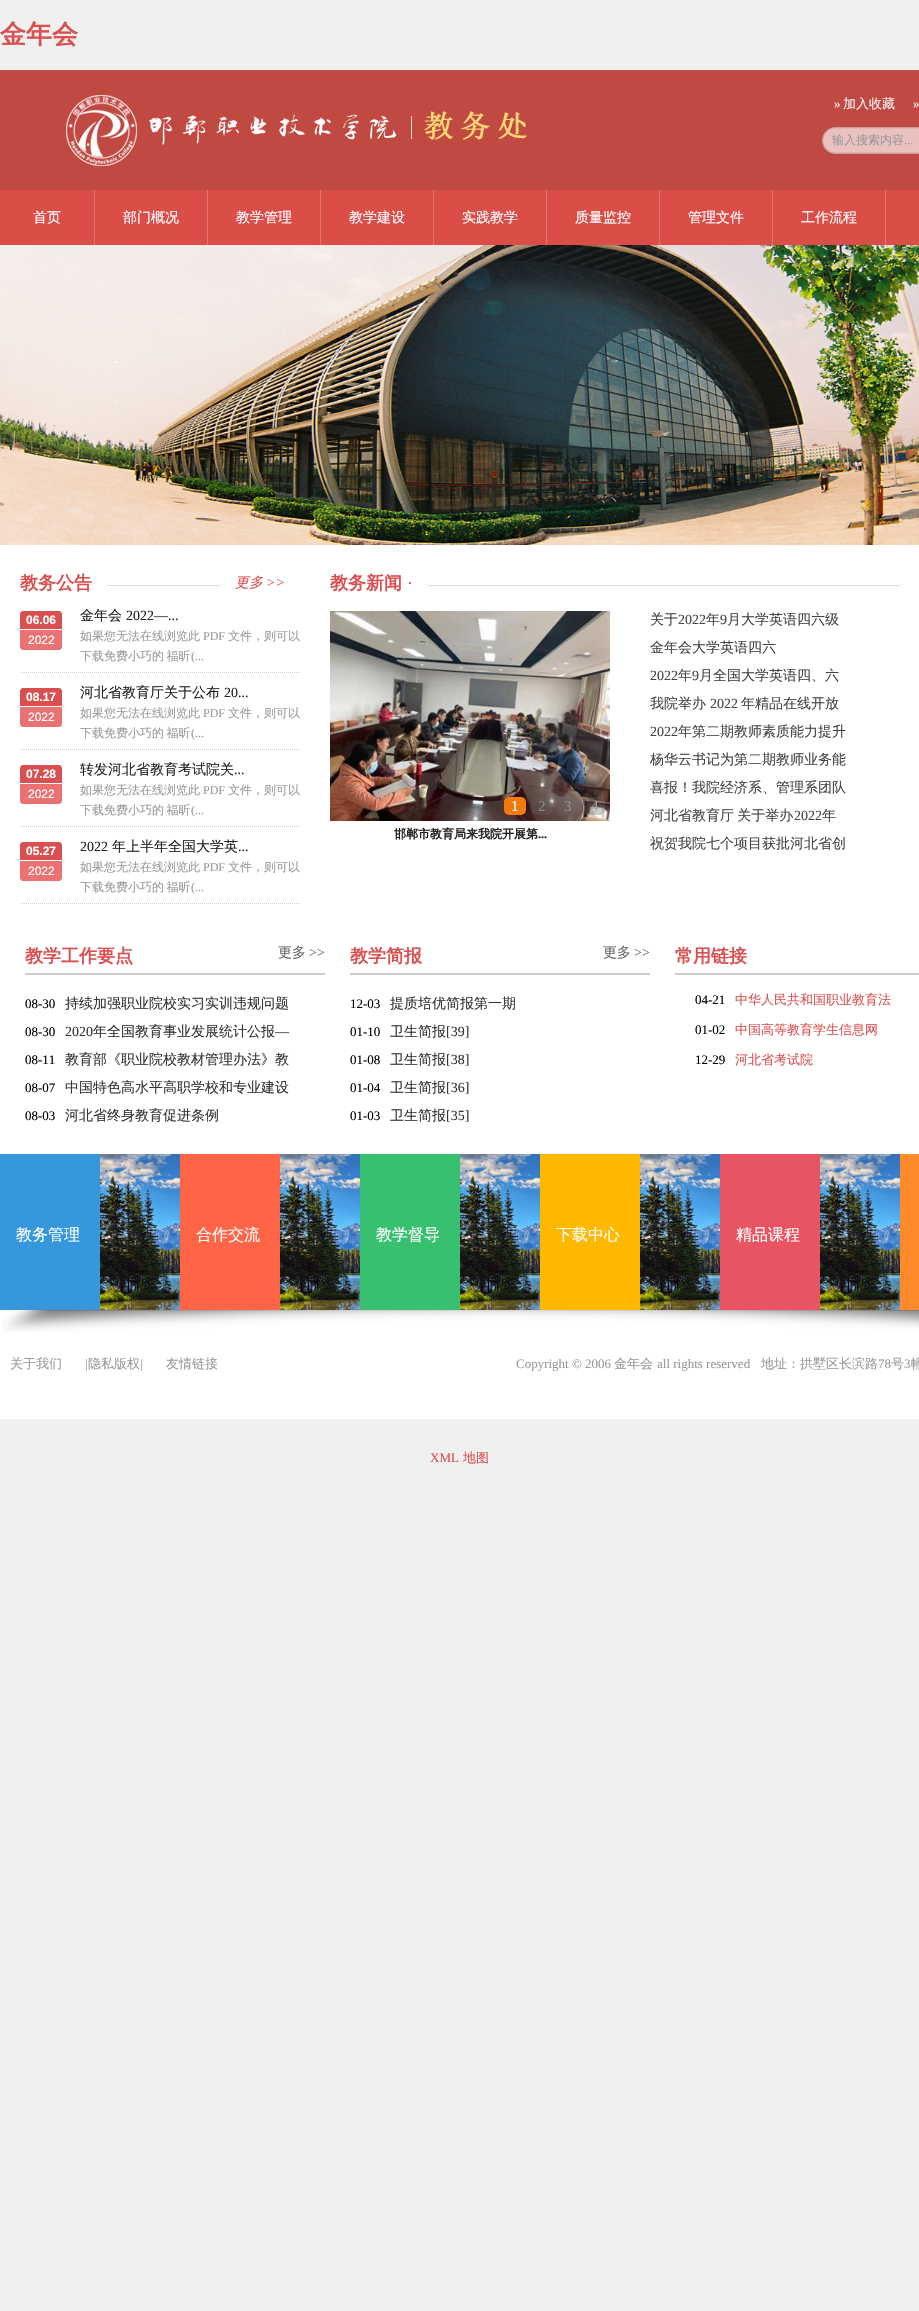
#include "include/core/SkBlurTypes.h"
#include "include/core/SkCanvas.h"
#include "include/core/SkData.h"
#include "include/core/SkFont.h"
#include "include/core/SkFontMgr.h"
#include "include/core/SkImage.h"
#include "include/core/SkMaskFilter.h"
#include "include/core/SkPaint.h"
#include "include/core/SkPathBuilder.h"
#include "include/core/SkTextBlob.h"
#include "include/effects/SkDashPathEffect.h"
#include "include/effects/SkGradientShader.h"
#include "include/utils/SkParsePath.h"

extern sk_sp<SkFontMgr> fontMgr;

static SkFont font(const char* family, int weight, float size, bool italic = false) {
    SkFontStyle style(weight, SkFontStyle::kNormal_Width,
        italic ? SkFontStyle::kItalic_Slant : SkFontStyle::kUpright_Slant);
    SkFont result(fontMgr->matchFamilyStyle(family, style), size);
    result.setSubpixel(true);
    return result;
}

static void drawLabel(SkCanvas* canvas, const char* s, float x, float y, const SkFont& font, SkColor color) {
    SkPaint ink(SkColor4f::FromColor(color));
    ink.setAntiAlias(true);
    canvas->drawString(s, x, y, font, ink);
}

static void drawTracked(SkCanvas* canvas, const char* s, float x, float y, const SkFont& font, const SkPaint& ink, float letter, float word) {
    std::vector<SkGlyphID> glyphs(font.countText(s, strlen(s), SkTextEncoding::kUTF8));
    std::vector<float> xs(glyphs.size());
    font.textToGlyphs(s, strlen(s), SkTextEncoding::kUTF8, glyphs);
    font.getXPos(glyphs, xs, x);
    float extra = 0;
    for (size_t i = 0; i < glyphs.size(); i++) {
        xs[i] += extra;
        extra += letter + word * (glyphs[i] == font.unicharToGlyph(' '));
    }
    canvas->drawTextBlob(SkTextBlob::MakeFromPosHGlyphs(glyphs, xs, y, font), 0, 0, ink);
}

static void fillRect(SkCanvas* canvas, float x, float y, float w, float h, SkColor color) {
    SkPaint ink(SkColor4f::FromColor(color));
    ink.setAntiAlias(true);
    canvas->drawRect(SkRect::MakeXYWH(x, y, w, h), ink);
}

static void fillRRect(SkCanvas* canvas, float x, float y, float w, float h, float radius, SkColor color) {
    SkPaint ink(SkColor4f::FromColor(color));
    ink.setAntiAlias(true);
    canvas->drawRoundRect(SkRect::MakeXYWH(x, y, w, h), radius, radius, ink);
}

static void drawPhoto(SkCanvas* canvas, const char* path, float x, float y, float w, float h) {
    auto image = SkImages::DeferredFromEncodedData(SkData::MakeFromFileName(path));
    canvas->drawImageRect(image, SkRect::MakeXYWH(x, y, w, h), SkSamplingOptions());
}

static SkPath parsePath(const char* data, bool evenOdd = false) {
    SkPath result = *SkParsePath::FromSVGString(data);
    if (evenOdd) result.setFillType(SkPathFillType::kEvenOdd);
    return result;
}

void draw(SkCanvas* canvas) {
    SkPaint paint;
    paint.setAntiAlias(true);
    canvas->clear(0xFFF0F0F0);
    SkFont font1 = font("WenQuanYi Zen Hei", 700, 26);
    drawLabel(canvas, "金年会", 0, 43, font1, 0xFFDA5050);
    drawPhoto(canvas, "assets/img1.png", 0, 70, 919, 120);
    SkFont font2 = font("Liberation Serif", 400, 13);
    drawLabel(canvas, "»", 834, 108, font2, 0xFFEFEFEF);
    SkFont font3 = font("WenQuanYi Zen Hei", 500, 13);
    drawLabel(canvas, "加入收藏", 843, 108, font3, 0xFFEFEFEF);
    drawLabel(canvas, "»", 913, 108, font2, 0xFFEFEFEF);
    drawPhoto(canvas, "assets/img2.png", 822, 127, 97, 27);
    SkFont font4 = font("WenQuanYi Zen Hei", 500, 12);
    drawLabel(canvas, "输入搜索内容", 832, 144, font4, 0xFF999999);
    SkFont font5 = font("Liberation Serif", 400, 12);
    drawLabel(canvas, "...", 904, 144, font5, 0xFF999999);
    fillRect(canvas, 0, 190, 919, 55, 0xFFDB4E48);
    fillRect(canvas, 94, 190, 1, 55, 0xFFE07671);
    SkFont font6 = font("WenQuanYi Zen Hei", 500, 14);
    drawLabel(canvas, "首页", 33, 222, font6, 0xFFFFFFFF);
    fillRect(canvas, 207, 190, 1, 55, 0xFFE07671);
    drawLabel(canvas, "部门概况", 123, 222, font6, 0xFFFFFFFF);
    fillRect(canvas, 320, 190, 1, 55, 0xFFE07671);
    drawLabel(canvas, "教学管理", 236, 222, font6, 0xFFFFFFFF);
    fillRect(canvas, 433, 190, 1, 55, 0xFFE07671);
    drawLabel(canvas, "教学建设", 349, 222, font6, 0xFFFFFFFF);
    fillRect(canvas, 546, 190, 1, 55, 0xFFE07671);
    drawLabel(canvas, "实践教学", 462, 222, font6, 0xFFFFFFFF);
    fillRect(canvas, 659, 190, 1, 55, 0xFFE07671);
    drawLabel(canvas, "质量监控", 575, 222, font6, 0xFFFFFFFF);
    fillRect(canvas, 772, 190, 1, 55, 0xFFE07671);
    drawLabel(canvas, "管理文件", 688, 222, font6, 0xFFFFFFFF);
    fillRect(canvas, 885, 190, 1, 55, 0xFFE07671);
    drawLabel(canvas, "工作流程", 801, 222, font6, 0xFFFFFFFF);
    drawPhoto(canvas, "assets/img3.png", 0, 245, 919, 300);
    fillRect(canvas, 0, 545, 919, 874, 0xFFFFFFFF);
    fillRect(canvas, 107, 585, 113, 1, 0xFFDEDEDE);
    SkFont font7 = font("WenQuanYi Zen Hei", 700, 18);
    drawLabel(canvas, "教务公告", 20, 589, font7, 0xFFDA5050);
    SkFont font8 = font("WenQuanYi Zen Hei", 500, 14, true);
    drawLabel(canvas, "更多", 235, 587, font8, 0xFFDA5050);
    SkFont font9 = font("Liberation Serif", 400, 14, true);
    drawLabel(canvas, ">>", 266, 587, font9, 0xFFDA5050);
    paint.setStroke(true);
    paint.setStrokeWidth(1);
    paint.setColor(0xFFCCCCCC);
    paint.setPathEffect(SkDashPathEffect::Make({{1, 1}}, 0));
    canvas->drawPath(parsePath("M20 672.5H300"), paint);
    paint.setPathEffect(nullptr);
    paint.setStroke(false);
    paint.setColor(0xFFDA5050);
    canvas->drawPath(parsePath("M23 611H59C60.5 611 62 612.5 62 614V629H20V614C20 612.5 21.5 611 23 611Z"), paint);
    SkFont font10 = font("Liberation Sans", 700, 12);
    drawLabel(canvas, "06.06", 26, 624, font10, 0xFFFFFFFF);
    paint.setColor(0xFFEA7272);
    canvas->drawPath(parsePath("M20 630H62V647C62 648.5 60.5 650 59 650H23C21.5 650 20 648.5 20 647Z"), paint);
    SkFont font11 = font("Liberation Sans", 400, 12);
    drawLabel(canvas, "2022", 28, 644, font11, 0xFFFFFFFF);
    drawLabel(canvas, "金年会", 80, 620, font6, 0xFF222222);
    SkFont font12 = font("Liberation Serif", 400, 14);
    drawLabel(canvas, "2022—...", 126, 620, font12, 0xFF222222);
    drawLabel(canvas, "如果您无法在线浏览此", 80, 640, font4, 0xFF999999);
    drawLabel(canvas, "PDF", 203, 640, font5, 0xFF999999);
    drawLabel(canvas, "文件，则可以", 228, 640, font4, 0xFF999999);
    paint.setColor(0xFF999999);
    drawTracked(canvas, "下载免费小巧的 福昕", 80, 660, font4, paint, 0, -1);
    drawLabel(canvas, "(...", 191, 660, font5, 0xFF999999);
    paint.setStroke(true);
    paint.setColor(0xFFCCCCCC);
    paint.setPathEffect(SkDashPathEffect::Make({{1, 1}}, 0));
    canvas->drawPath(parsePath("M20 749.5H300"), paint);
    paint.setPathEffect(nullptr);
    paint.setStroke(false);
    paint.setColor(0xFFDA5050);
    canvas->drawPath(parsePath("M23 688H59C60.5 688 62 689.5 62 691V706H20V691C20 689.5 21.5 688 23 688Z"), paint);
    drawLabel(canvas, "08.17", 26, 701, font10, 0xFFFFFFFF);
    paint.setColor(0xFFEA7272);
    canvas->drawPath(parsePath("M20 707H62V724C62 725.5 60.5 727 59 727H23C21.5 727 20 725.5 20 724Z"), paint);
    drawLabel(canvas, "2022", 28, 721, font11, 0xFFFFFFFF);
    drawLabel(canvas, "河北省教育厅关于公布", 80, 697, font6, 0xFF222222);
    drawLabel(canvas, "20...", 224, 697, font12, 0xFF222222);
    drawLabel(canvas, "如果您无法在线浏览此", 80, 717, font4, 0xFF999999);
    drawLabel(canvas, "PDF", 203, 717, font5, 0xFF999999);
    drawLabel(canvas, "文件，则可以", 228, 717, font4, 0xFF999999);
    paint.setColor(0xFF999999);
    drawTracked(canvas, "下载免费小巧的 福昕", 80, 737, font4, paint, 0, -1);
    drawLabel(canvas, "(...", 191, 737, font5, 0xFF999999);
    paint.setStroke(true);
    paint.setColor(0xFFCCCCCC);
    paint.setPathEffect(SkDashPathEffect::Make({{1, 1}}, 0));
    canvas->drawPath(parsePath("M20 826.5H300"), paint);
    paint.setPathEffect(nullptr);
    paint.setStroke(false);
    paint.setColor(0xFFDA5050);
    canvas->drawPath(parsePath("M23 765H59C60.5 765 62 766.5 62 768V783H20V768C20 766.5 21.5 765 23 765Z"), paint);
    drawLabel(canvas, "07.28", 26, 778, font10, 0xFFFFFFFF);
    paint.setColor(0xFFEA7272);
    canvas->drawPath(parsePath("M20 784H62V801C62 802.5 60.5 804 59 804H23C21.5 804 20 802.5 20 801Z"), paint);
    drawLabel(canvas, "2022", 28, 798, font11, 0xFFFFFFFF);
    drawLabel(canvas, "转发河北省教育考试院关", 80, 774, font6, 0xFF222222);
    drawLabel(canvas, "...", 234, 774, font12, 0xFF222222);
    drawLabel(canvas, "如果您无法在线浏览此", 80, 794, font4, 0xFF999999);
    drawLabel(canvas, "PDF", 203, 794, font5, 0xFF999999);
    drawLabel(canvas, "文件，则可以", 228, 794, font4, 0xFF999999);
    paint.setColor(0xFF999999);
    drawTracked(canvas, "下载免费小巧的 福昕", 80, 814, font4, paint, 0, -1);
    drawLabel(canvas, "(...", 191, 814, font5, 0xFF999999);
    paint.setStroke(true);
    paint.setColor(0xFFCCCCCC);
    paint.setPathEffect(SkDashPathEffect::Make({{1, 1}}, 0));
    canvas->drawPath(parsePath("M20 903.5H300"), paint);
    paint.setPathEffect(nullptr);
    paint.setStroke(false);
    paint.setColor(0xFFDA5050);
    canvas->drawPath(parsePath("M23 842H59C60.5 842 62 843.5 62 845V860H20V845C20 843.5 21.5 842 23 842Z"), paint);
    drawLabel(canvas, "05.27", 26, 855, font10, 0xFFFFFFFF);
    paint.setColor(0xFFEA7272);
    canvas->drawPath(parsePath("M20 861H62V878C62 879.5 60.5 881 59 881H23C21.5 881 20 879.5 20 878Z"), paint);
    drawLabel(canvas, "2022", 28, 875, font11, 0xFFFFFFFF);
    drawLabel(canvas, "2022", 80, 851, font12, 0xFF222222);
    drawLabel(canvas, "年上半年全国大学英", 112, 851, font6, 0xFF222222);
    drawLabel(canvas, "...", 238, 851, font12, 0xFF222222);
    drawLabel(canvas, "如果您无法在线浏览此", 80, 871, font4, 0xFF999999);
    drawLabel(canvas, "PDF", 203, 871, font5, 0xFF999999);
    drawLabel(canvas, "文件，则可以", 228, 871, font4, 0xFF999999);
    paint.setColor(0xFF999999);
    drawTracked(canvas, "下载免费小巧的 福昕", 80, 891, font4, paint, 0, -1);
    drawLabel(canvas, "(...", 191, 891, font5, 0xFF999999);
    fillRect(canvas, 428, 585, 472, 1, 0xFFDEDEDE);
    drawLabel(canvas, "教务新闻", 330, 589, font7, 0xFFDA5050);
    SkFont font13 = font("Liberation Serif", 400, 18);
    drawLabel(canvas, "·", 407, 589, font13, 0xFFDA5050);
    drawPhoto(canvas, "assets/img4.png", 330, 611, 280, 210);
    fillRRect(canvas, 504, 797, 22, 18, 5, 0xFFF17B0A);
    SkFont font14 = font("Liberation Serif", 400, 15);
    drawLabel(canvas, "1", 511, 811, font14, 0xFFFFFFFF);
    fillRRect(canvas, 531, 797, 21, 18, 5, 0x4D666666);
    drawLabel(canvas, "2", 538, 811, font14, 0xFF8E8381);
    fillRRect(canvas, 557, 797, 22, 18, 5, 0x4D666666);
    drawLabel(canvas, "3", 564, 811, font14, 0xFF988F8B);
    fillRRect(canvas, 584, 797, 21, 18, 5, 0x4D666666);
    drawLabel(canvas, "4", 591, 811, font14, 0xFFAAA5A2);
    SkFont font15 = font("WenQuanYi Zen Hei", 700, 12);
    drawLabel(canvas, "邯郸市教育局来我院开展第", 394, 838, font15, 0xFF222222);
    SkFont font16 = font("Liberation Serif", 700, 12);
    drawLabel(canvas, "...", 538, 838, font16, 0xFF222222);
    drawLabel(canvas, "关于", 650, 624, font6, 0xFF444444);
    drawLabel(canvas, "2022", 678, 624, font12, 0xFF444444);
    drawLabel(canvas, "年", 706, 624, font6, 0xFF444444);
    drawLabel(canvas, "9", 720, 624, font12, 0xFF444444);
    drawLabel(canvas, "月大学英语四六级", 727, 624, font6, 0xFF444444);
    drawLabel(canvas, "金年会大学英语四六", 650, 652, font6, 0xFF444444);
    drawLabel(canvas, "2022", 650, 680, font12, 0xFF444444);
    drawLabel(canvas, "年", 678, 680, font6, 0xFF444444);
    drawLabel(canvas, "9", 692, 680, font12, 0xFF444444);
    drawLabel(canvas, "月全国大学英语四、六", 699, 680, font6, 0xFF444444);
    drawLabel(canvas, "我院举办", 650, 708, font6, 0xFF444444);
    drawLabel(canvas, "2022", 710, 708, font12, 0xFF444444);
    drawLabel(canvas, "年精品在线开放", 741, 708, font6, 0xFF444444);
    drawLabel(canvas, "2022", 650, 736, font12, 0xFF444444);
    drawLabel(canvas, "年第二期教师素质能力提升", 678, 736, font6, 0xFF444444);
    drawLabel(canvas, "杨华云书记为第二期教师业务能", 650, 764, font6, 0xFF444444);
    drawLabel(canvas, "喜报！我院经济系、管理系团队", 650, 792, font6, 0xFF444444);
    paint.setColor(0xFF444444);
    drawTracked(canvas, "河北省教育厅 关于举办", 650, 820, font6, paint, 0, -1);
    drawLabel(canvas, "2022", 794, 820, font12, 0xFF444444);
    drawLabel(canvas, "年", 822, 820, font6, 0xFF444444);
    drawLabel(canvas, "祝贺我院七个项目获批河北省创", 650, 848, font6, 0xFF444444);
    fillRect(canvas, 25, 973, 300, 2, 0xFFCCCCCC);
    drawLabel(canvas, "教学工作要点", 25, 962, font7, 0xFFDA5050);
    drawLabel(canvas, "更多", 278, 957, font6, 0xFF666666);
    drawLabel(canvas, ">>", 309, 957, font12, 0xFF666666);
    drawLabel(canvas, "08-30", 25, 1008, font2, 0xFF000000);
    drawLabel(canvas, "持续加强职业院校实习实训违规问题", 65, 1008, font6, 0xFF333333);
    drawLabel(canvas, "08-30", 25, 1036, font2, 0xFF000000);
    drawLabel(canvas, "2020", 65, 1036, font12, 0xFF333333);
    drawLabel(canvas, "年全国教育事业发展统计公报", 93, 1036, font6, 0xFF333333);
    drawLabel(canvas, "—", 275, 1036, font12, 0xFF333333);
    drawLabel(canvas, "08-11", 25, 1064, font2, 0xFF000000);
    drawLabel(canvas, "教育部《职业院校教材管理办法》教", 65, 1064, font6, 0xFF333333);
    drawLabel(canvas, "08-07", 25, 1092, font2, 0xFF000000);
    drawLabel(canvas, "中国特色高水平高职学校和专业建设", 65, 1092, font6, 0xFF333333);
    drawLabel(canvas, "08-03", 25, 1120, font2, 0xFF000000);
    drawLabel(canvas, "河北省终身教育促进条例", 65, 1120, font6, 0xFF333333);
    fillRect(canvas, 350, 973, 300, 2, 0xFFCCCCCC);
    drawLabel(canvas, "教学简报", 350, 962, font7, 0xFFDA5050);
    drawLabel(canvas, "更多", 603, 957, font6, 0xFF666666);
    drawLabel(canvas, ">>", 634, 957, font12, 0xFF666666);
    drawLabel(canvas, "12-03", 350, 1008, font2, 0xFF000000);
    drawLabel(canvas, "提质培优简报第一期", 390, 1008, font6, 0xFF333333);
    drawLabel(canvas, "01-10", 350, 1036, font2, 0xFF000000);
    drawLabel(canvas, "卫生简报", 390, 1036, font6, 0xFF333333);
    drawLabel(canvas, "[39]", 446, 1036, font12, 0xFF333333);
    drawLabel(canvas, "01-08", 350, 1064, font2, 0xFF000000);
    drawLabel(canvas, "卫生简报", 390, 1064, font6, 0xFF333333);
    drawLabel(canvas, "[38]", 446, 1064, font12, 0xFF333333);
    drawLabel(canvas, "01-04", 350, 1092, font2, 0xFF000000);
    drawLabel(canvas, "卫生简报", 390, 1092, font6, 0xFF333333);
    drawLabel(canvas, "[36]", 446, 1092, font12, 0xFF333333);
    drawLabel(canvas, "01-03", 350, 1120, font2, 0xFF000000);
    drawLabel(canvas, "卫生简报", 390, 1120, font6, 0xFF333333);
    drawLabel(canvas, "[35]", 446, 1120, font12, 0xFF333333);
    fillRect(canvas, 675, 973, 244, 2, 0xFFCCCCCC);
    drawLabel(canvas, "常用链接", 675, 962, font7, 0xFFDA5050);
    drawLabel(canvas, "04-21", 695, 1004, font2, 0xFF000000);
    drawLabel(canvas, "中华人民共和国职业教育法", 735, 1004, font3, 0xFFDA5050);
    drawLabel(canvas, "01-02", 695, 1034, font2, 0xFF000000);
    drawLabel(canvas, "中国高等教育学生信息网", 735, 1034, font3, 0xFFDA5050);
    drawLabel(canvas, "12-29", 695, 1064, font2, 0xFF000000);
    drawLabel(canvas, "河北省考试院", 735, 1064, font3, 0xFFDA5050);
    drawPhoto(canvas, "assets/img5.png", 2, 1310, 917, 22);
    fillRect(canvas, 0, 1154, 100, 156, 0xFF3597DC);
    SkFont font17 = font("WenQuanYi Zen Hei", 500, 16);
    drawLabel(canvas, "教务管理", 16, 1240, font17, 0xFFFFFFFF);
    drawPhoto(canvas, "assets/img6.png", 100, 1154, 80, 156);
    fillRect(canvas, 180, 1154, 100, 156, 0xFFFF6446);
    drawLabel(canvas, "合作交流", 196, 1240, font17, 0xFFFFFFFF);
    drawPhoto(canvas, "assets/img6.png", 280, 1154, 80, 156);
    fillRect(canvas, 360, 1154, 100, 156, 0xFF36C070);
    drawLabel(canvas, "教学督导", 376, 1240, font17, 0xFFFFFFFF);
    drawPhoto(canvas, "assets/img6.png", 460, 1154, 80, 156);
    fillRect(canvas, 540, 1154, 100, 156, 0xFFFEB800);
    drawLabel(canvas, "下载中心", 556, 1240, font17, 0xFFFFFFFF);
    drawPhoto(canvas, "assets/img6.png", 640, 1154, 80, 156);
    fillRect(canvas, 720, 1154, 100, 156, 0xFFE85462);
    drawLabel(canvas, "精品课程", 736, 1240, font17, 0xFFFFFFFF);
    drawPhoto(canvas, "assets/img6.png", 820, 1154, 80, 156);
    fillRect(canvas, 900, 1154, 19, 156, 0xFFFF8A2C);
    drawLabel(canvas, "关于我们", 10, 1368, font3, 0xFF999999);
    drawLabel(canvas, "|", 85, 1368, font2, 0xFF999999);
    drawLabel(canvas, "隐私版权", 88, 1368, font3, 0xFF999999);
    drawLabel(canvas, "|", 140, 1368, font2, 0xFF999999);
    drawLabel(canvas, "友情链接", 166, 1368, font3, 0xFF999999);
    drawLabel(canvas, "Copyright © 2006", 516, 1368, font2, 0xFF999999);
    drawLabel(canvas, "金年会", 614, 1368, font3, 0xFF999999);
    drawLabel(canvas, "all rights reserved", 657, 1368, font2, 0xFF999999);
    drawLabel(canvas, "地址：拱墅区长滨路", 761, 1368, font3, 0xFF999999);
    drawLabel(canvas, "78", 878, 1368, font2, 0xFF999999);
    drawLabel(canvas, "号", 891, 1368, font3, 0xFF999999);
    drawLabel(canvas, "3", 904, 1368, font2, 0xFF999999);
    drawLabel(canvas, "幢", 911, 1368, font3, 0xFF999999);
    drawLabel(canvas, "XML", 430, 1462, font2, 0xFFDA5050);
    drawLabel(canvas, "地图", 463, 1462, font3, 0xFFDA5050);
}
